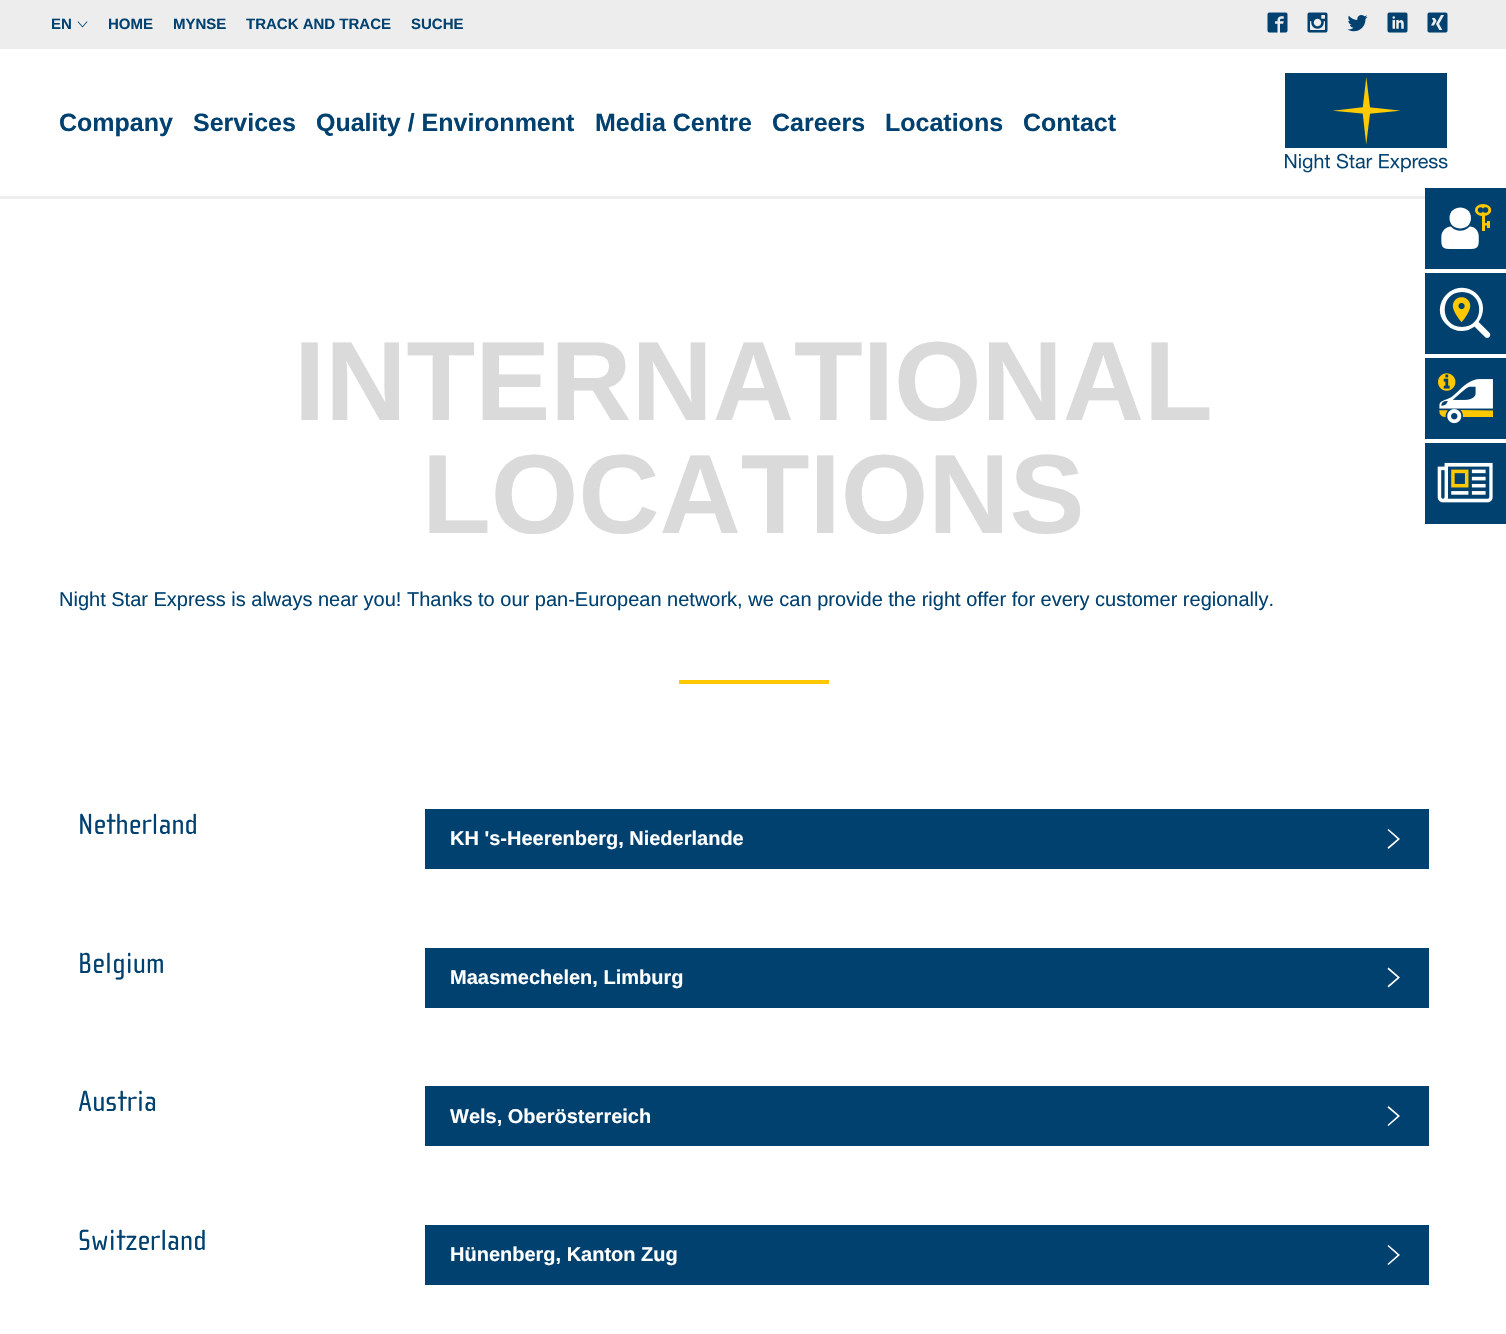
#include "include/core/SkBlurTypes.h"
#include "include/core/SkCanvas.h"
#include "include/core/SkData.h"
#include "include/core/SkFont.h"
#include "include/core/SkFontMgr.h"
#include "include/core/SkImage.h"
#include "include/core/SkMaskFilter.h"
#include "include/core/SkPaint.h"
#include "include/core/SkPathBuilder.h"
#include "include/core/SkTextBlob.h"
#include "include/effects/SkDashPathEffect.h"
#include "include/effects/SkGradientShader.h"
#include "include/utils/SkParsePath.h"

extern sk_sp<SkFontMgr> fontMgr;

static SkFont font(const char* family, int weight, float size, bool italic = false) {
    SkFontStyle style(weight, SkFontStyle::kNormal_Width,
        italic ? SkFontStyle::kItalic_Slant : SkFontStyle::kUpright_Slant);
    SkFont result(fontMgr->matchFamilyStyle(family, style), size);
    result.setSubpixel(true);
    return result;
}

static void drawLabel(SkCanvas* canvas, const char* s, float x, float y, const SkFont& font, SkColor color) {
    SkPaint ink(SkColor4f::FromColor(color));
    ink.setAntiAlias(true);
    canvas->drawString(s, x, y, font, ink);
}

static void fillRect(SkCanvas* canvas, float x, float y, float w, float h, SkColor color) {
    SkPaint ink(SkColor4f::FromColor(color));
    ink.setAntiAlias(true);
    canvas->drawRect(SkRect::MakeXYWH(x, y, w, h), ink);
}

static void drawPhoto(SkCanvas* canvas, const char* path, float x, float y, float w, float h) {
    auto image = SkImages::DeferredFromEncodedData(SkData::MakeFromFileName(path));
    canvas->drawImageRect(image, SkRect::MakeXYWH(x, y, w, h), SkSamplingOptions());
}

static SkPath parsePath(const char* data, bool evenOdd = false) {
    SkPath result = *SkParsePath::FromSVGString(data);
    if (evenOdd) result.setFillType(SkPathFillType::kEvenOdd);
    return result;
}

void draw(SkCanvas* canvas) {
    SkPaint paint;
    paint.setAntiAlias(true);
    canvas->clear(0xFFFFFFFF);
    fillRect(canvas, 0, 0, 1506, 49, 0xFFEDEDED);
    SkFont font1 = font("Liberation Sans", 700, 15);
    drawLabel(canvas, "EN", 51, 29, font1, 0xFF004170);
    drawPhoto(canvas, "assets/img1.png", 77, 21, 11, 7);
    drawLabel(canvas, "HOME", 108, 29, font1, 0xFF004170);
    drawLabel(canvas, "MYNSE", 173, 29, font1, 0xFF004170);
    drawLabel(canvas, "TRACK AND TRACE", 246, 29, font1, 0xFF004170);
    drawLabel(canvas, "SUCHE", 411, 29, font1, 0xFF004170);
    drawPhoto(canvas, "assets/img2.png", 1267, 12, 21, 21);
    drawPhoto(canvas, "assets/img3.png", 1307, 12, 21, 21);
    drawPhoto(canvas, "assets/img4.png", 1347, 15, 21, 17);
    drawPhoto(canvas, "assets/img5.png", 1387, 12, 21, 21);
    drawPhoto(canvas, "assets/img6.png", 1427, 12, 21, 21);
    fillRect(canvas, 0, 196, 1425, 3, 0xFFEDEDED);
    SkFont font2 = font("Liberation Sans", 700, 25);
    drawLabel(canvas, "Company", 59, 131, font2, 0xFF004170);
    drawLabel(canvas, "Services", 193, 131, font2, 0xFF004170);
    drawLabel(canvas, "Quality / Environment", 316, 131, font2, 0xFF004170);
    drawLabel(canvas, "Media Centre", 595, 131, font2, 0xFF004170);
    drawLabel(canvas, "Careers", 772, 131, font2, 0xFF004170);
    drawLabel(canvas, "Locations", 885, 131, font2, 0xFF004170);
    drawLabel(canvas, "Contact", 1023, 131, font2, 0xFF004170);
    drawPhoto(canvas, "assets/img7.png", 1285, 73, 163, 100);
    SkFont font3 = font("Liberation Sans", 700, 112.5f);
    drawLabel(canvas, "INTERNATIONAL", 294, 420, font3, 0xFFDADADA);
    drawLabel(canvas, "LOCATIONS", 422, 533, font3, 0xFFDADADA);
    SkFont font4 = font("Liberation Sans", 400, 20);
    drawLabel(canvas, "Night Star Express is always near you! Thanks to our pan-European network, we can provide the right offer for every customer regionally.", 59, 606, font4, 0xFF004170);
    fillRect(canvas, 679, 680, 150, 4, 0xFFFFC800);
    SkFont font5 = font("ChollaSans", 400, 30);
    drawLabel(canvas, "Netherland", 78, 834, font5, 0xFF004170);
    fillRect(canvas, 425, 809, 1004, 60, 0xFF004170);
    SkFont font6 = font("Liberation Sans", 700, 20);
    drawLabel(canvas, "KH 's-Heerenberg, Niederlande", 450, 845, font6, 0xFFFFFFFF);
    paint.setColor(0xFFFFFFFF);
    canvas->drawPath(parsePath("M1388.5 849L1387.5 847.5L1397.5 839L1387.5 830L1388.5 829L1400 839Z"), paint);
    drawLabel(canvas, "Belgium", 78, 973, font5, 0xFF004170);
    fillRect(canvas, 425, 948, 1004, 60, 0xFF004170);
    drawLabel(canvas, "Maasmechelen, Limburg", 450, 984, font6, 0xFFFFFFFF);
    canvas->drawPath(parsePath("M1388.5 987.5L1387.5 986L1397.5 977.5L1387.5 969L1388.5 967.5L1400 977.5Z"), paint);
    drawLabel(canvas, "Austria", 78, 1111, font5, 0xFF004170);
    fillRect(canvas, 425, 1086, 1004, 60, 0xFF004170);
    drawLabel(canvas, "Wels, Oberösterreich", 450, 1123, font6, 0xFFFFFFFF);
    canvas->drawPath(parsePath("M1388.5 1126L1387.5 1125L1397.5 1116L1387.5 1107.5L1388.5 1106L1400 1116Z"), paint);
    drawLabel(canvas, "Switzerland", 78, 1250, font5, 0xFF004170);
    fillRect(canvas, 425, 1225, 1004, 60, 0xFF004170);
    drawLabel(canvas, "Hünenberg, Kanton Zug", 450, 1261, font6, 0xFFFFFFFF);
    canvas->drawPath(parsePath("M1388.5 1265L1387.5 1264L1397.5 1255L1387.5 1246L1388.5 1245L1400 1255Z"), paint);
    fillRect(canvas, 1425, 188, 81, 81, 0xFF004170);
    canvas->drawPath(parsePath("M1471 218C1471 232 1449.5 232 1449.5 218C1449.5 204 1471 204 1471 218Z"), paint);
    drawPhoto(canvas, "assets/img8.png", 1475, 204, 17, 12);
    fillRect(canvas, 1482, 216, 3, 15, 0xFFFFC800);
    paint.setColor(0xFFFFC800);
    canvas->drawPath(parsePath("M1483.5 223H1488V225.5H1483.5Z"), paint);
    fillRect(canvas, 1487, 221, 3, 7, 0xFFFFC800);
    drawPhoto(canvas, "assets/img9.png", 1441, 226, 38, 23);
    fillRect(canvas, 1425, 273, 81, 81, 0xFF004170);
    paint.setColor(0xFFFFFFFF);
    canvas->drawPath(parsePath("M1462 331C1456 331 1451 329 1447 325C1428 308 1451 278 1473 291C1479 295 1483 301 1483 308C1483 320 1474 331 1462 331ZM1462 292C1439 292 1439 327 1462 327C1485 327 1485 292 1462 292Z"), paint);
    drawPhoto(canvas, "assets/img10.png", 1452, 297, 19, 25);
    drawPhoto(canvas, "assets/img11.png", 1473, 321, 18, 17);
    fillRect(canvas, 1425, 358, 81, 81, 0xFF004170);
    drawPhoto(canvas, "assets/img12.png", 1438, 373, 18, 18);
    drawPhoto(canvas, "assets/img13.png", 1439, 379, 54, 30);
    drawPhoto(canvas, "assets/img14.png", 1439, 410, 9, 7);
    paint.setColor(0xFFFFC800);
    canvas->drawPath(parsePath("M1460.5 410C1462.5 412 1463 414.5 1463 417H1493V410.5Z"), paint);
    drawPhoto(canvas, "assets/img15.png", 1447, 409, 15, 15);
    fillRect(canvas, 1425, 443, 81, 81, 0xFF004170);
    drawPhoto(canvas, "assets/img16.png", 1437, 462, 56, 41);
    drawPhoto(canvas, "assets/img17.png", 1451, 469, 35, 26);
    drawPhoto(canvas, "assets/img18.png", 1451, 469, 18, 19);
}
